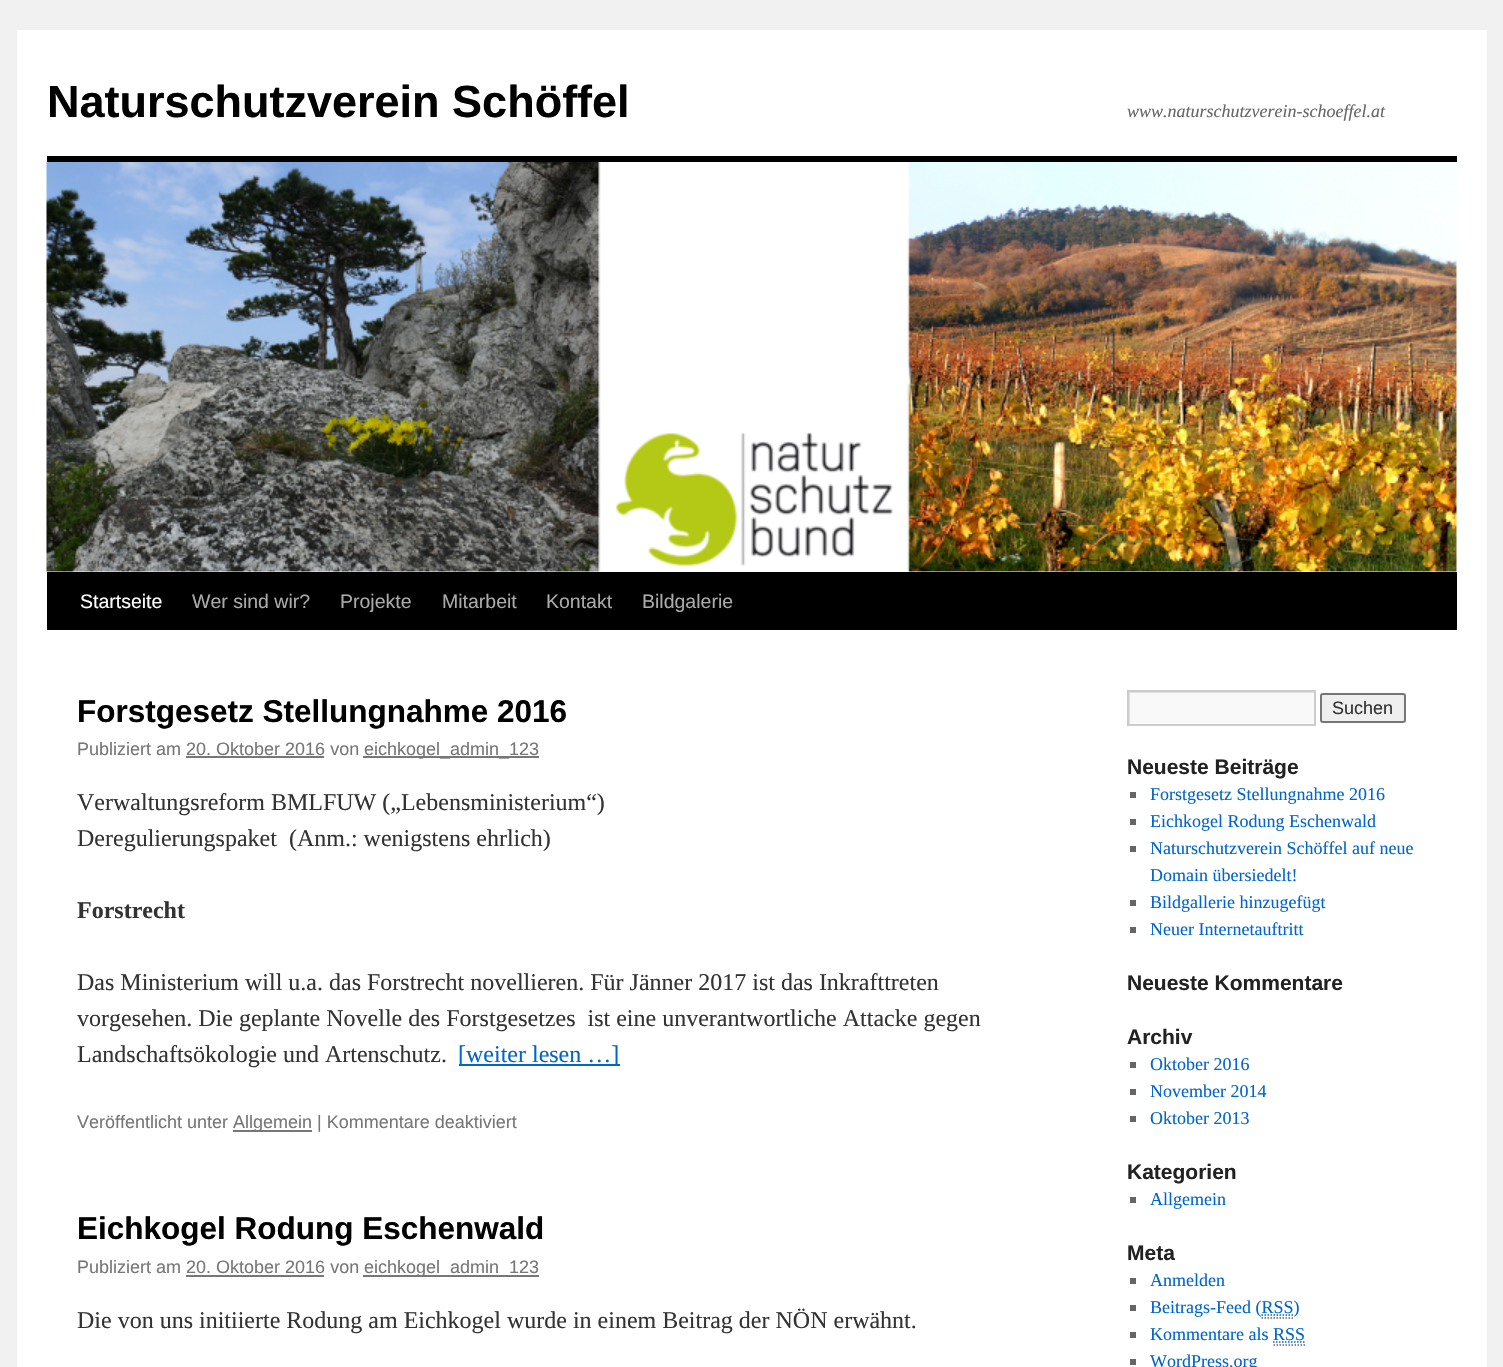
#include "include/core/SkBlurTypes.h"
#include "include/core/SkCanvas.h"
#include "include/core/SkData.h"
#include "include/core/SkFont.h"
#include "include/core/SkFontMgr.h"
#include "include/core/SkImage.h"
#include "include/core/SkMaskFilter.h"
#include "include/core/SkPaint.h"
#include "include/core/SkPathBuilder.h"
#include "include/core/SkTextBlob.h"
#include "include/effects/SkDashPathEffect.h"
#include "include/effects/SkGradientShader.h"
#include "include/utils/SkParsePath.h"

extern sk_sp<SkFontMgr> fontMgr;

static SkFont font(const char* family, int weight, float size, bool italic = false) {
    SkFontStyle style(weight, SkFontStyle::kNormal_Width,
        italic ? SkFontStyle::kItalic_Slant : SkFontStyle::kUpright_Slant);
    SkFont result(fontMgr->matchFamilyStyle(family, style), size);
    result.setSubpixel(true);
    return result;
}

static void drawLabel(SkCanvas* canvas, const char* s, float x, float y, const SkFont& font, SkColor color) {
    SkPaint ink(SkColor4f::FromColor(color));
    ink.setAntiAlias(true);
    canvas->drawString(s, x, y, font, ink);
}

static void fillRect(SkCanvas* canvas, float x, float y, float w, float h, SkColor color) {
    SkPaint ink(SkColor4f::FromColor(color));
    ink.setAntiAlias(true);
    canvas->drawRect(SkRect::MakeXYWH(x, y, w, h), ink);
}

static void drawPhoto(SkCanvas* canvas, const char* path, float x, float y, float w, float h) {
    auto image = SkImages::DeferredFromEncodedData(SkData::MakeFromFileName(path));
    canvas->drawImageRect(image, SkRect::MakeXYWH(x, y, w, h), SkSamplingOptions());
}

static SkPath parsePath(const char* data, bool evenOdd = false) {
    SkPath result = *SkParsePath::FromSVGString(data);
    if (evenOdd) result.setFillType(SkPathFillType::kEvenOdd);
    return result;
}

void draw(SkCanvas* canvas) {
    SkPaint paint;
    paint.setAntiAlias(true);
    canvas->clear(0xFFF1F1F1);
    fillRect(canvas, 17, 30, 1470, 1337, 0xFFFFFFFF);
    SkFont font1 = font("Liberation Sans", 700, 45);
    drawLabel(canvas, "Naturschutzverein Schöffel", 47, 117, font1, 0xFF000000);
    SkFont font2 = font("Liberation Serif", 400, 18, true);
    drawLabel(canvas, "www.naturschutzverein-schoeffel.at", 1127, 117, font2, 0xFF666666);
    fillRect(canvas, 47, 156, 1410, 6, 0xFF000000);
    fillRect(canvas, 47, 572, 1410, 58, 0xFF000000);
    drawPhoto(canvas, "assets/img1.png", 46, 162, 1411, 410);
    SkFont font3 = font("Liberation Sans", 400, 19.5f);
    drawLabel(canvas, "Startseite", 80, 608, font3, 0xFFFFFFFF);
    drawLabel(canvas, "Wer sind wir?", 192, 608, font3, 0xFFAAAAAA);
    drawLabel(canvas, "Projekte", 340, 608, font3, 0xFFAAAAAA);
    drawLabel(canvas, "Mitarbeit", 442, 608, font3, 0xFFAAAAAA);
    drawLabel(canvas, "Kontakt", 546, 608, font3, 0xFFAAAAAA);
    drawLabel(canvas, "Bildgalerie", 642, 608, font3, 0xFFAAAAAA);
    SkFont font4 = font("Liberation Sans", 700, 31.5f);
    drawLabel(canvas, "Forstgesetz Stellungnahme 2016", 77, 722, font4, 0xFF000000);
    SkFont font5 = font("Liberation Sans", 400, 18);
    drawLabel(canvas, "Publiziert am 20. Oktober 2016 von", 77, 755, font5, 0xFF777777);
    fillRect(canvas, 363, 756, 176, 2, 0xFF777777);
    drawLabel(canvas, "eichkogel_admin_123", 364, 755, font5, 0xFF777777);
    fillRect(canvas, 186, 756, 138, 2, 0xFF777777);
    SkFont font6 = font("Liberation Serif", 400, 24);
    drawLabel(canvas, "Verwaltungsreform BMLFUW („Lebensministerium“)", 77, 810, font6, 0xFF333333);
    drawLabel(canvas, "Deregulierungspaket  (Anm.: wenigstens ehrlich)", 77, 846, font6, 0xFF333333);
    SkFont font7 = font("Liberation Serif", 700, 24);
    drawLabel(canvas, "Forstrecht", 77, 918, font7, 0xFF333333);
    drawLabel(canvas, "Das Ministerium will u.a. das Forstrecht novellieren. Für Jänner 2017 ist das Inkrafttreten", 77, 990, font6, 0xFF333333);
    drawLabel(canvas, "vorgesehen. Die geplante Novelle des Forstgesetzes  ist eine unverantwortliche Attacke gegen", 77, 1026, font6, 0xFF333333);
    drawLabel(canvas, "Landschaftsökologie und Artenschutz.", 77, 1062, font6, 0xFF333333);
    fillRect(canvas, 459, 1064, 161, 2, 0xFF0066CC);
    drawLabel(canvas, "[weiter lesen …]", 458, 1062, font6, 0xFF0066CC);
    drawLabel(canvas, "Veröffentlicht unter", 77, 1128, font5, 0xFF777777);
    fillRect(canvas, 233, 1130, 79, 2, 0xFF777777);
    drawLabel(canvas, "Allgemein | Kommentare deaktiviert", 233, 1128, font5, 0xFF777777);
    drawLabel(canvas, "Eichkogel Rodung Eschenwald", 77, 1239, font4, 0xFF000000);
    drawLabel(canvas, "Publiziert am 20. Oktober 2016 von", 77, 1273, font5, 0xFF777777);
    fillRect(canvas, 363, 1275, 176, 2, 0xFF777777);
    drawLabel(canvas, "eichkogel_admin_123", 364, 1273, font5, 0xFF777777);
    fillRect(canvas, 186, 1275, 138, 2, 0xFF777777);
    drawLabel(canvas, "Die von uns initiierte Rodung am Eichkogel wurde in einem Beitrag der NÖN erwähnt.", 77, 1328, font6, 0xFF333333);
    fillRect(canvas, 1130, 693, 184, 31, 0xFFF9F9F9);
    canvas->save();
    canvas->clipRect(SkRect::MakeXYWH(1128, 692, 186, 33));
    paint.setColor(0xFFE0E0E0);
    canvas->drawPath(parsePath("M980 543H1462V873H980ZM1130 693H1316V726H1130Z", true), paint);
    canvas->restore();
    paint.setStroke(true);
    paint.setStrokeWidth(2);
    paint.setColor(0xFFCCCCCC);
    canvas->drawRect(SkRect::MakeXYWH(1128, 691, 187, 34), paint);
    paint.setStroke(false);
    paint.setColor(0xFFEFEFEF);
    canvas->drawRoundRect(SkRect::MakeXYWH(1321, 694, 84, 28), 2, 2, paint);
    paint.setStroke(true);
    paint.setColor(0xFF767676);
    canvas->drawRoundRect(SkRect::MakeXYWH(1321, 694, 84, 28), 2, 2, paint);
    drawLabel(canvas, "Suchen", 1332, 714, font5, 0xFF333333);
    SkFont font8 = font("Liberation Sans", 700, 21);
    drawLabel(canvas, "Neueste Beiträge", 1127, 774, font8, 0xFF222222);
    fillRect(canvas, 1130, 792, 6, 6, 0xFF666666);
    SkFont font9 = font("Liberation Serif", 400, 18);
    drawLabel(canvas, "Forstgesetz Stellungnahme 2016", 1150, 800, font9, 0xFF0066CC);
    fillRect(canvas, 1130, 819, 6, 6, 0xFF666666);
    drawLabel(canvas, "Eichkogel Rodung Eschenwald", 1150, 827, font9, 0xFF0066CC);
    fillRect(canvas, 1130, 846, 6, 6, 0xFF666666);
    drawLabel(canvas, "Naturschutzverein Schöffel auf neue", 1150, 854, font9, 0xFF0066CC);
    drawLabel(canvas, "Domain übersiedelt!", 1150, 881, font9, 0xFF0066CC);
    fillRect(canvas, 1130, 900, 6, 6, 0xFF666666);
    drawLabel(canvas, "Bildgallerie hinzugefügt", 1150, 908, font9, 0xFF0066CC);
    fillRect(canvas, 1130, 927, 6, 6, 0xFF666666);
    drawLabel(canvas, "Neuer Internetauftritt", 1150, 935, font9, 0xFF0066CC);
    drawLabel(canvas, "Neueste Kommentare", 1127, 990, font8, 0xFF222222);
    drawLabel(canvas, "Archiv", 1127, 1044, font8, 0xFF222222);
    fillRect(canvas, 1130, 1062, 6, 6, 0xFF666666);
    drawLabel(canvas, "Oktober 2016", 1150, 1070, font9, 0xFF0066CC);
    fillRect(canvas, 1130, 1089, 6, 6, 0xFF666666);
    drawLabel(canvas, "November 2014", 1150, 1097, font9, 0xFF0066CC);
    fillRect(canvas, 1130, 1116, 6, 6, 0xFF666666);
    drawLabel(canvas, "Oktober 2013", 1150, 1124, font9, 0xFF0066CC);
    drawLabel(canvas, "Kategorien", 1127, 1179, font8, 0xFF222222);
    fillRect(canvas, 1130, 1197, 6, 6, 0xFF666666);
    drawLabel(canvas, "Allgemein", 1150, 1205, font9, 0xFF0066CC);
    drawLabel(canvas, "Meta", 1127, 1260, font8, 0xFF222222);
    fillRect(canvas, 1130, 1278, 6, 6, 0xFF666666);
    drawLabel(canvas, "Anmelden", 1150, 1286, font9, 0xFF0066CC);
    fillRect(canvas, 1130, 1305, 6, 6, 0xFF666666);
    drawLabel(canvas, "Beitrags-Feed (RSS)", 1150, 1313, font9, 0xFF0066CC);
    paint.setStrokeWidth(1.5f);
    paint.setColor(0xFF666666);
    paint.setPathEffect(SkDashPathEffect::Make({{1.5f, 1.5f}}, 0));
    canvas->drawPath(parsePath("M1261.5 1318H1293"), paint);
    paint.setPathEffect(nullptr);
    paint.setColor(0xFF0066CC);
    paint.setPathEffect(SkDashPathEffect::Make({{1.5f, 1.5f}}, 0));
    canvas->drawPath(parsePath("M1261.5 1315H1293.5"), paint);
    paint.setPathEffect(nullptr);
    fillRect(canvas, 1130, 1332, 6, 6, 0xFF666666);
    drawLabel(canvas, "Kommentare als RSS", 1150, 1340, font9, 0xFF0066CC);
    paint.setColor(0xFF666666);
    paint.setPathEffect(SkDashPathEffect::Make({{1.5f, 1.5f}}, 0));
    canvas->drawPath(parsePath("M1273.5 1345H1305"), paint);
    paint.setPathEffect(nullptr);
    paint.setColor(0xFF0066CC);
    paint.setPathEffect(SkDashPathEffect::Make({{1.5f, 1.5f}}, 0));
    canvas->drawPath(parsePath("M1273 1342H1305"), paint);
    paint.setPathEffect(nullptr);
    fillRect(canvas, 1130, 1359, 6, 6, 0xFF666666);
    drawLabel(canvas, "WordPress.org", 1150, 1367, font9, 0xFF0066CC);
}
